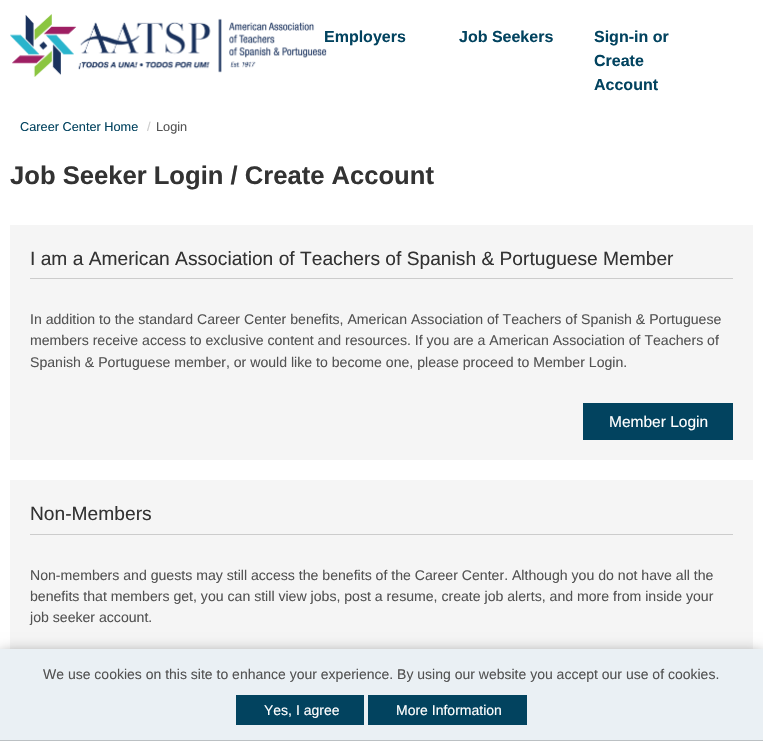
#include "include/core/SkBlurTypes.h"
#include "include/core/SkCanvas.h"
#include "include/core/SkData.h"
#include "include/core/SkFont.h"
#include "include/core/SkFontMgr.h"
#include "include/core/SkImage.h"
#include "include/core/SkMaskFilter.h"
#include "include/core/SkPaint.h"
#include "include/core/SkPathBuilder.h"
#include "include/core/SkTextBlob.h"
#include "include/effects/SkDashPathEffect.h"
#include "include/effects/SkGradientShader.h"
#include "include/utils/SkParsePath.h"

extern sk_sp<SkFontMgr> fontMgr;

static SkFont font(const char* family, int weight, float size, bool italic = false) {
    SkFontStyle style(weight, SkFontStyle::kNormal_Width,
        italic ? SkFontStyle::kItalic_Slant : SkFontStyle::kUpright_Slant);
    SkFont result(fontMgr->matchFamilyStyle(family, style), size);
    result.setSubpixel(true);
    return result;
}

static void drawLabel(SkCanvas* canvas, const char* s, float x, float y, const SkFont& font, SkColor color) {
    SkPaint ink(SkColor4f::FromColor(color));
    ink.setAntiAlias(true);
    canvas->drawString(s, x, y, font, ink);
}

static void fillRect(SkCanvas* canvas, float x, float y, float w, float h, SkColor color) {
    SkPaint ink(SkColor4f::FromColor(color));
    ink.setAntiAlias(true);
    canvas->drawRect(SkRect::MakeXYWH(x, y, w, h), ink);
}

static void drawPhoto(SkCanvas* canvas, const char* path, float x, float y, float w, float h) {
    auto image = SkImages::DeferredFromEncodedData(SkData::MakeFromFileName(path));
    canvas->drawImageRect(image, SkRect::MakeXYWH(x, y, w, h), SkSamplingOptions());
}

void draw(SkCanvas* canvas) {
    SkPaint paint;
    paint.setAntiAlias(true);
    canvas->clear(0xFFFFFFFF);
    drawPhoto(canvas, "assets/img1.png", 10, 14, 317, 63);
    SkFont font1 = font("Liberation Sans", 700, 16);
    drawLabel(canvas, "Employers", 324, 42, font1, 0xFF02435F);
    drawLabel(canvas, "Job Seekers", 459, 42, font1, 0xFF02435F);
    drawLabel(canvas, "Sign-in or", 594, 42, font1, 0xFF02435F);
    drawLabel(canvas, "Create", 594, 66, font1, 0xFF02435F);
    drawLabel(canvas, "Account", 594, 90, font1, 0xFF02435F);
    SkFont font2 = font("Liberation Sans", 400, 12.75f);
    drawLabel(canvas, "Career Center Home", 20, 131, font2, 0xFF02435F);
    drawLabel(canvas, "/", 147, 131, font2, 0xFFCCCCCC);
    drawLabel(canvas, "Login", 156, 131, font2, 0xFF535353);
    SkFont font3 = font("Liberation Sans", 700, 25.6f);
    drawLabel(canvas, "Job Seeker Login / Create Account", 10, 184, font3, 0xFF333333);
    fillRect(canvas, 10, 225, 743, 235, 0xFFF5F5F5);
    fillRect(canvas, 30, 278, 703, 1, 0xFFCCCCCC);
    SkFont font4 = font("Liberation Sans", 400, 19.2f);
    drawLabel(canvas, "I am a American Association of Teachers of Spanish & Portuguese Member", 30, 265, font4, 0xFF333333);
    SkFont font5 = font("Liberation Sans", 400, 14.1f);
    drawLabel(canvas, "In addition to the standard Career Center benefits, American Association of Teachers of Spanish & Portuguese", 30, 324, font5, 0xFF535353);
    drawLabel(canvas, "members receive access to exclusive content and resources. If you are a American Association of Teachers of", 30, 345, font5, 0xFF535353);
    drawLabel(canvas, "Spanish & Portuguese member, or would like to become one, please proceed to Member Login.", 30, 367, font5, 0xFF535353);
    fillRect(canvas, 583, 403, 150, 37, 0xFF02435F);
    SkFont font6 = font("Liberation Sans", 400, 15.5f);
    drawLabel(canvas, "Member Login", 609, 427, font6, 0xFFFFFFFF);
    fillRect(canvas, 10, 480, 743, 169, 0xFFF5F5F5);
    fillRect(canvas, 30, 534, 703, 1, 0xFFCCCCCC);
    drawLabel(canvas, "Non-Members", 30, 520, font4, 0xFF333333);
    drawLabel(canvas, "Non-members and guests may still access the benefits of the Career Center. Although you do not have all the", 30, 580, font5, 0xFF535353);
    drawLabel(canvas, "benefits that members get, you can still view jobs, post a resume, create job alerts, and more from inside your", 30, 601, font5, 0xFF535353);
    drawLabel(canvas, "job seeker account.", 30, 622, font5, 0xFF535353);
    paint.setColor(0x80000000);
    paint.setMaskFilter(SkMaskFilter::MakeBlur(kNormal_SkBlurStyle, 7.5f));
    canvas->drawRect(SkRect::MakeXYWH(0, 654, 763, 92), paint);
    paint.setMaskFilter(nullptr);
    fillRect(canvas, 0, 649, 763, 91, 0xFFEAF0F4);
    fillRect(canvas, 0, 740, 763, 1, 0xFFBBC0C3);
    SkFont font7 = font("Liberation Sans", 400, 14);
    drawLabel(canvas, "We use cookies on this site to enhance your experience. By using our website you accept our use of cookies.", 43, 679, font7, 0xFF535353);
    fillRect(canvas, 236, 695, 128, 30, 0xFF02435F);
    drawLabel(canvas, "Yes, I agree", 264, 715, font7, 0xFFFFFFFF);
    fillRect(canvas, 368, 695, 159, 30, 0xFF02435F);
    drawLabel(canvas, "More Information", 396, 715, font7, 0xFFFFFFFF);
}
